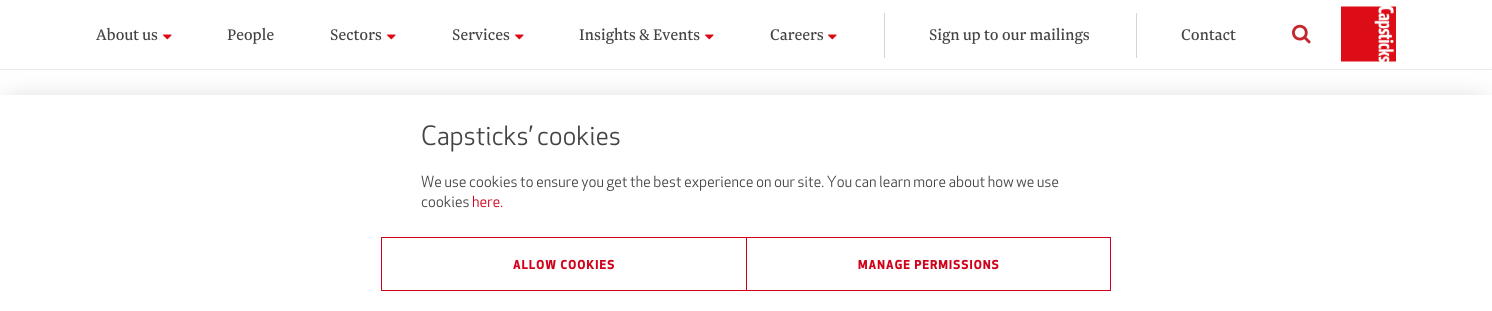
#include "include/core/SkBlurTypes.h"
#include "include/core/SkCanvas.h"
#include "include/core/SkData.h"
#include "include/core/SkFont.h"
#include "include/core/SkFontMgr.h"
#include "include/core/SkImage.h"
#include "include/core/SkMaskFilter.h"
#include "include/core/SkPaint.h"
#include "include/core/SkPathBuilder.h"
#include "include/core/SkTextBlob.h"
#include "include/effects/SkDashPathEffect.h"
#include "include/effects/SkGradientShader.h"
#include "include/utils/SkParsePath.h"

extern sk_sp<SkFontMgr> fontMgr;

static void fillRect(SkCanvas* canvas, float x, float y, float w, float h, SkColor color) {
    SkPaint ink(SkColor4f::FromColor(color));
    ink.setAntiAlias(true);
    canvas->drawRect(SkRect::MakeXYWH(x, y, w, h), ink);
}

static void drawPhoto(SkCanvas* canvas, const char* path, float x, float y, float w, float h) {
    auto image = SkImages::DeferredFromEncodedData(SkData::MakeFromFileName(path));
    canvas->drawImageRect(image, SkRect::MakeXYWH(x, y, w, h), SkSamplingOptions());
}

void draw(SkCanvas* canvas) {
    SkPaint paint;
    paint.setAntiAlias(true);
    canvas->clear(0xFFFFFFFF);
    fillRect(canvas, 0, 69, 1492, 1, 0xFFEAEAEA);
    drawPhoto(canvas, "assets/img1.png", 96, 27, 62, 14);
    drawPhoto(canvas, "assets/img2.png", 163, 34, 9, 6);
    drawPhoto(canvas, "assets/img3.png", 227, 27, 47, 17);
    drawPhoto(canvas, "assets/img4.png", 330, 29, 52, 12);
    drawPhoto(canvas, "assets/img2.png", 387, 34, 9, 6);
    drawPhoto(canvas, "assets/img5.png", 452, 28, 58, 13);
    drawPhoto(canvas, "assets/img2.png", 515, 34, 9, 6);
    drawPhoto(canvas, "assets/img6.png", 579, 27, 121, 17);
    drawPhoto(canvas, "assets/img2.png", 705, 34, 9, 6);
    drawPhoto(canvas, "assets/img7.png", 770, 29, 53, 12);
    drawPhoto(canvas, "assets/img2.png", 828, 34, 9, 6);
    fillRect(canvas, 884, 13, 1, 45, 0xFFD5D5D5);
    drawPhoto(canvas, "assets/img8.png", 929, 27, 160, 17);
    fillRect(canvas, 1136, 13, 1, 45, 0xFFD5D5D5);
    drawPhoto(canvas, "assets/img9.png", 1181, 29, 55, 12);
    drawPhoto(canvas, "assets/img10.png", 1292, 24, 19, 20);
    drawPhoto(canvas, "assets/img11.png", 1341, 6, 55, 56);
    paint.setColor(0x33000000);
    paint.setMaskFilter(SkMaskFilter::MakeBlur(kNormal_SkBlurStyle, 12.5f));
    canvas->drawRect(SkRect::MakeXYWH(5, 102, 1482, 206), paint);
    paint.setMaskFilter(nullptr);
    fillRect(canvas, 0, 95, 1492, 216, 0xFFFFFFFF);
    drawPhoto(canvas, "assets/img12.png", 422, 125, 198, 27);
    drawPhoto(canvas, "assets/img13.png", 421, 175, 638, 16);
    drawPhoto(canvas, "assets/img14.png", 421, 195, 48, 13);
    drawPhoto(canvas, "assets/img15.png", 472, 195, 31, 13);
    fillRect(canvas, 381, 237, 365, 1, 0xFFD0021B);
    fillRect(canvas, 381, 290, 365, 1, 0xFFD0021B);
    fillRect(canvas, 381, 237, 1, 54, 0xFFD0021B);
    drawPhoto(canvas, "assets/img16.png", 513, 259, 101, 11);
    paint.setStroke(true);
    paint.setStrokeWidth(1);
    paint.setColor(0xFFD0021B);
    canvas->drawRect(SkRect::MakeXYWH(746.5f, 237.5f, 364, 53), paint);
    drawPhoto(canvas, "assets/img17.png", 858, 259, 141, 11);
}
